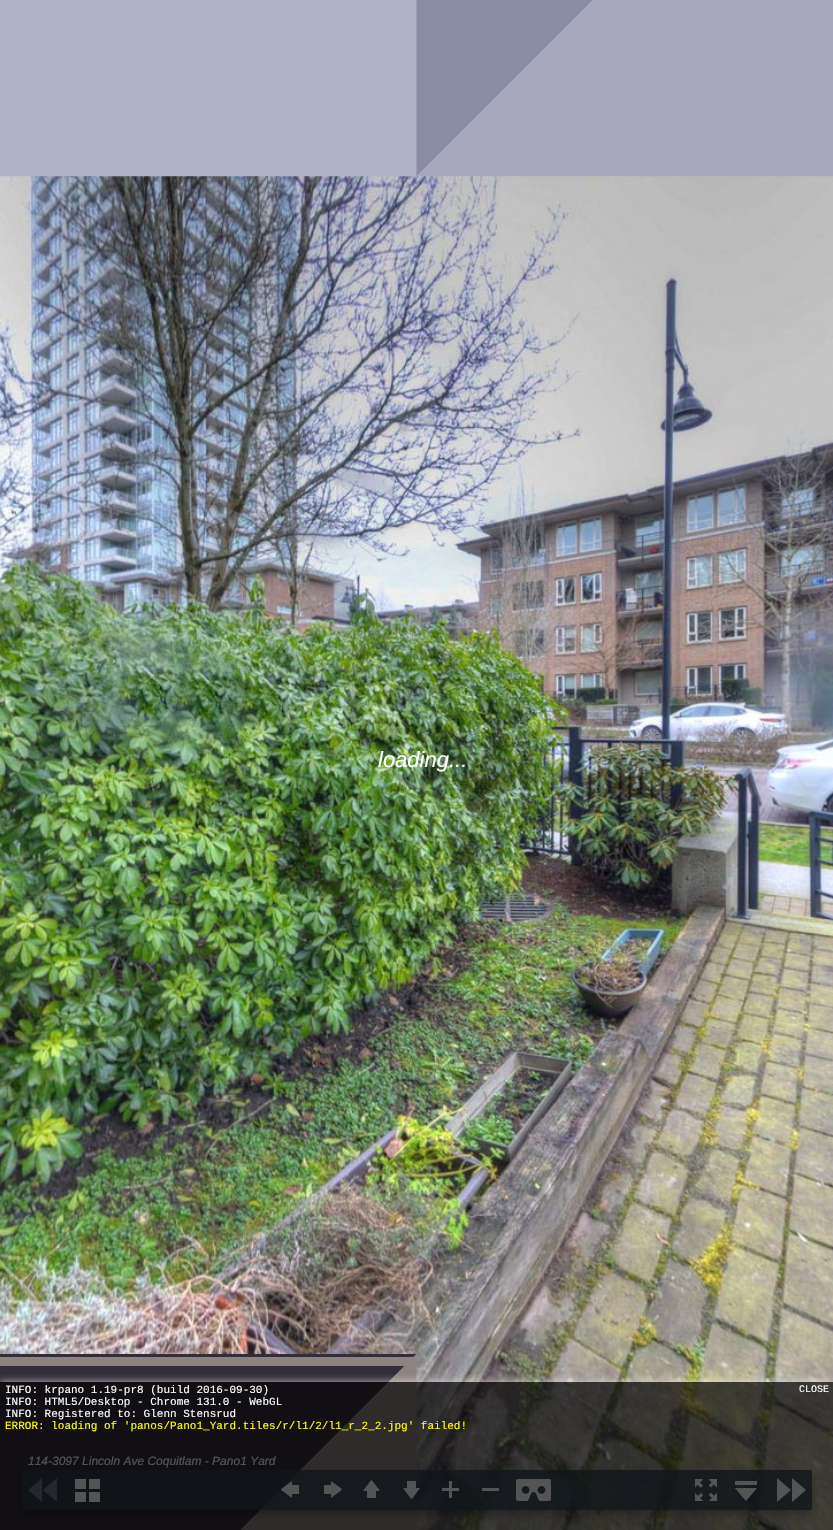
#include "include/core/SkBlurTypes.h"
#include "include/core/SkCanvas.h"
#include "include/core/SkData.h"
#include "include/core/SkFont.h"
#include "include/core/SkFontMgr.h"
#include "include/core/SkImage.h"
#include "include/core/SkMaskFilter.h"
#include "include/core/SkPaint.h"
#include "include/core/SkPathBuilder.h"
#include "include/core/SkTextBlob.h"
#include "include/effects/SkDashPathEffect.h"
#include "include/effects/SkGradientShader.h"
#include "include/utils/SkParsePath.h"

extern sk_sp<SkFontMgr> fontMgr;

static SkFont font(const char* family, int weight, float size, bool italic = false) {
    SkFontStyle style(weight, SkFontStyle::kNormal_Width,
        italic ? SkFontStyle::kItalic_Slant : SkFontStyle::kUpright_Slant);
    SkFont result(fontMgr->matchFamilyStyle(family, style), size);
    result.setSubpixel(true);
    return result;
}

static void drawLabel(SkCanvas* canvas, const char* s, float x, float y, const SkFont& font, SkColor color) {
    SkPaint ink(SkColor4f::FromColor(color));
    ink.setAntiAlias(true);
    canvas->drawString(s, x, y, font, ink);
}

static void fillRect(SkCanvas* canvas, float x, float y, float w, float h, SkColor color) {
    SkPaint ink(SkColor4f::FromColor(color));
    ink.setAntiAlias(true);
    canvas->drawRect(SkRect::MakeXYWH(x, y, w, h), ink);
}

static void drawPhoto(SkCanvas* canvas, const char* path, float x, float y, float w, float h) {
    auto image = SkImages::DeferredFromEncodedData(SkData::MakeFromFileName(path));
    canvas->drawImageRect(image, SkRect::MakeXYWH(x, y, w, h), SkSamplingOptions());
}

static SkPath parsePath(const char* data, bool evenOdd = false) {
    SkPath result = *SkParsePath::FromSVGString(data);
    if (evenOdd) result.setFillType(SkPathFillType::kEvenOdd);
    return result;
}

void draw(SkCanvas* canvas) {
    SkPaint paint;
    paint.setAntiAlias(true);
    canvas->clear(0xFFFFFFFF);
    drawPhoto(canvas, "assets/img1.png", 0, 0, 833, 1530);
    SkFont font1 = font("Liberation Sans", 400, 22, true);
    drawLabel(canvas, "loading...", 378, 767, font1, 0xFFFFFFFF);
    canvas->save();
    canvas->clipRect(SkRect::MakeXYWH(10, 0, 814, 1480));
    canvas->clipPath(parsePath("M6 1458H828V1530H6ZM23 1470H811C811.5 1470 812 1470.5 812 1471V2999C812 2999.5 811.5 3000 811 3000H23C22.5 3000 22 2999.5 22 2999V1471C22 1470.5 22.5 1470 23 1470Z", true), true);
    paint.setColor(0x4D000000);
    paint.setMaskFilter(SkMaskFilter::MakeBlur(kNormal_SkBlurStyle, 5));
    canvas->drawRoundRect(SkRect::MakeXYWH(22, 1474, 790, 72), 1, 1, paint);
    paint.setMaskFilter(nullptr);
    canvas->restore();
    paint.setColor(0xCC2D3E50);
    canvas->drawPath(parsePath("M23 1470H811C811.5 1470 812 1470.5 812 1471V1480H22V1471C22 1470.5 22.5 1470 23 1470Z"), paint);
    canvas->save();
    canvas->clipRect(SkRect::MakeXYWH(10, 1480, 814, 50));
    canvas->clipPath(parsePath("M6 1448H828V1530H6ZM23 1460H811C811.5 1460 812 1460.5 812 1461V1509C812 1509.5 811.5 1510 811 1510H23C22.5 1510 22 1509.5 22 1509V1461C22 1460.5 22.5 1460 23 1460Z", true), true);
    paint.setColor(0x4D000000);
    paint.setMaskFilter(SkMaskFilter::MakeBlur(kNormal_SkBlurStyle, 5));
    canvas->drawRoundRect(SkRect::MakeXYWH(22, 1464, 790, 50), 1, 1, paint);
    paint.setMaskFilter(nullptr);
    canvas->restore();
    paint.setColor(0xCC2D3E50);
    canvas->drawPath(parsePath("M22 1480H812V1509C812 1509.5 811.5 1510 811 1510H23C22.5 1510 22 1509.5 22 1509Z"), paint);
    SkFont font2 = font("Liberation Sans", 400, 12, true);
    drawLabel(canvas, "114-3097 Lincoln Ave Coquitlam - Pano1 Yard", 28, 1465, font2, 0xFFFFFFFF);
    drawPhoto(canvas, "assets/img2.png", 28, 1478, 29, 24);
    drawPhoto(canvas, "assets/img3.png", 75, 1479, 25, 23);
    drawPhoto(canvas, "assets/img4.png", 281, 1480, 18, 19);
    drawPhoto(canvas, "assets/img5.png", 324, 1480, 18, 19);
    drawPhoto(canvas, "assets/img6.png", 362, 1480, 19, 18);
    drawPhoto(canvas, "assets/img7.png", 402, 1481, 19, 18);
    drawPhoto(canvas, "assets/img8.png", 442, 1481, 17, 17);
    fillRect(canvas, 482, 1488, 17, 3, 0xFFFFFFFF);
    drawPhoto(canvas, "assets/img9.png", 516, 1479, 35, 22);
    drawPhoto(canvas, "assets/img10.png", 695, 1479, 22, 22);
    drawPhoto(canvas, "assets/img11.png", 735, 1481, 22, 20);
    drawPhoto(canvas, "assets/img12.png", 777, 1478, 29, 24);
    canvas->save();
    canvas->clipRect(SkRect::MakeXYWH(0, 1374, 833, 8));
    paint.setColor(0xABFFFFFF);
    paint.setMaskFilter(SkMaskFilter::MakeBlur(kNormal_SkBlurStyle, 4));
    canvas->drawRect(SkRect::MakeXYWH(0, 1382, 833, 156), paint);
    paint.setMaskFilter(nullptr);
    canvas->restore();
    fillRect(canvas, 0, 1382, 833, 148, 0xAB000000);
    SkFont font3 = font("Liberation Mono", 400, 11);
    drawLabel(canvas, "INFO: krpano 1.19-pr8 (build 2016-09-30)", 5, 1393, font3, 0xFFFFFFFF);
    drawLabel(canvas, "INFO: HTML5/Desktop - Chrome 131.0 - WebGL", 5, 1405, font3, 0xFFFFFFFF);
    drawLabel(canvas, "INFO: Registered to: Glenn Stensrud", 5, 1417, font3, 0xFFFFFFFF);
    drawLabel(canvas, "ERROR: loading of 'panos/Pano1_Yard.tiles/r/l1/2/l1_r_2_2.jpg' failed!", 5, 1429, font3, 0xFFFFFF00);
    SkFont font4 = font("Liberation Mono", 400, 10);
    drawLabel(canvas, "CLOSE", 799, 1392, font4, 0xFFFFFFFF);
}
